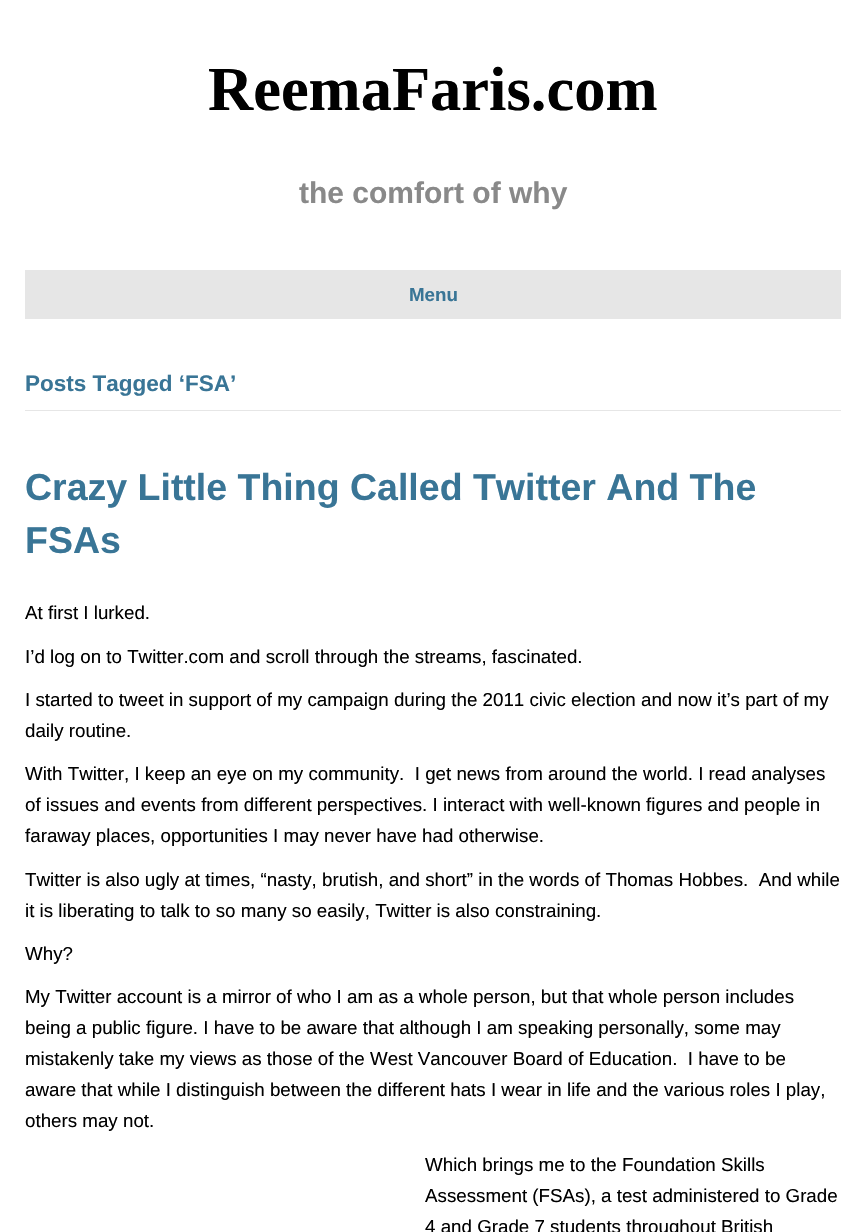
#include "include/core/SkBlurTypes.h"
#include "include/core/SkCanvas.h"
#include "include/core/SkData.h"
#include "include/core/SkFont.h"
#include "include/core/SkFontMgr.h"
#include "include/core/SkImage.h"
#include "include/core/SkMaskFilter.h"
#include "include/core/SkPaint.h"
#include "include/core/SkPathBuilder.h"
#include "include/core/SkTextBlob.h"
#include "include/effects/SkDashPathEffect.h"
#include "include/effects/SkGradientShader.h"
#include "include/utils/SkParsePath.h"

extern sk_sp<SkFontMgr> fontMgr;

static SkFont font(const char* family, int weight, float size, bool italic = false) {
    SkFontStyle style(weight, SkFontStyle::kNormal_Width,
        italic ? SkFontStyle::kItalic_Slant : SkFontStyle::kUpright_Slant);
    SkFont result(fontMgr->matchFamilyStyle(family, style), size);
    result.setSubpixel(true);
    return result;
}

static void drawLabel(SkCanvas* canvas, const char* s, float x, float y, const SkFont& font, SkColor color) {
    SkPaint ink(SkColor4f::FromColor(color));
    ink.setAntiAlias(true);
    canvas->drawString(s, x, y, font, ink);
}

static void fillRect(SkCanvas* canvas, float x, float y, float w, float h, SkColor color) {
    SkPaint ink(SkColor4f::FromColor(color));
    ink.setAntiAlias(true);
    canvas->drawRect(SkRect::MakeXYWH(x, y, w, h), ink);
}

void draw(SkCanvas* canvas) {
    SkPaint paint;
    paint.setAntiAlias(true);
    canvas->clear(0xFFFFFFFF);
    SkFont font1 = font("Liberation Serif", 700, 62.5f);
    drawLabel(canvas, "ReemaFaris.com", 208, 110, font1, 0xFF000000);
    SkFont font2 = font("Liberation Sans", 700, 30);
    drawLabel(canvas, "the comfort of why", 299, 203, font2, 0xFF898989);
    fillRect(canvas, 25, 270, 816, 49, 0xFFE6E6E6);
    SkFont font3 = font("Liberation Sans", 700, 18.75f);
    drawLabel(canvas, "Menu", 409, 301, font3, 0xFF397596);
    fillRect(canvas, 25, 410, 816, 1, 0xFFE6E6E6);
    SkFont font4 = font("Liberation Sans", 700, 22.5f);
    drawLabel(canvas, "Posts Tagged ‘FSA’", 25, 391, font4, 0xFF397596);
    SkFont font5 = font("Liberation Sans", 700, 37.5f);
    drawLabel(canvas, "Crazy Little Thing Called Twitter And The", 25, 500, font5, 0xFF397596);
    drawLabel(canvas, "FSAs", 25, 553, font5, 0xFF397596);
    SkFont font6 = font("Liberation Sans", 400, 18.75f);
    drawLabel(canvas, "At first I lurked.", 25, 619, font6, 0xFF000000);
    drawLabel(canvas, "I’d log on to Twitter.com and scroll through the streams, fascinated.", 25, 663, font6, 0xFF000000);
    drawLabel(canvas, "I started to tweet in support of my campaign during the 2011 civic election and now it’s part of my", 25, 706, font6, 0xFF000000);
    drawLabel(canvas, "daily routine.", 25, 737, font6, 0xFF000000);
    drawLabel(canvas, "With Twitter, I keep an eye on my community.  I get news from around the world. I read analyses", 25, 780, font6, 0xFF000000);
    drawLabel(canvas, "of issues and events from different perspectives. I interact with well-known figures and people in", 25, 811, font6, 0xFF000000);
    drawLabel(canvas, "faraway places, opportunities I may never have had otherwise.", 25, 842, font6, 0xFF000000);
    drawLabel(canvas, "Twitter is also ugly at times, “nasty, brutish, and short” in the words of Thomas Hobbes.  And while", 25, 886, font6, 0xFF000000);
    drawLabel(canvas, "it is liberating to talk to so many so easily, Twitter is also constraining.", 25, 917, font6, 0xFF000000);
    drawLabel(canvas, "Why?", 25, 960, font6, 0xFF000000);
    drawLabel(canvas, "My Twitter account is a mirror of who I am as a whole person, but that whole person includes", 25, 1003, font6, 0xFF000000);
    drawLabel(canvas, "being a public figure. I have to be aware that although I am speaking personally, some may", 25, 1034, font6, 0xFF000000);
    drawLabel(canvas, "mistakenly take my views as those of the West Vancouver Board of Education.  I have to be", 25, 1065, font6, 0xFF000000);
    drawLabel(canvas, "aware that while I distinguish between the different hats I wear in life and the various roles I play,", 25, 1096, font6, 0xFF000000);
    drawLabel(canvas, "others may not.", 25, 1127, font6, 0xFF000000);
    drawLabel(canvas, "Which brings me to the Foundation Skills", 425, 1171, font6, 0xFF000000);
    drawLabel(canvas, "Assessment (FSAs), a test administered to Grade", 425, 1202, font6, 0xFF000000);
    drawLabel(canvas, "4 and Grade 7 students throughout British", 425, 1233, font6, 0xFF000000);
}
